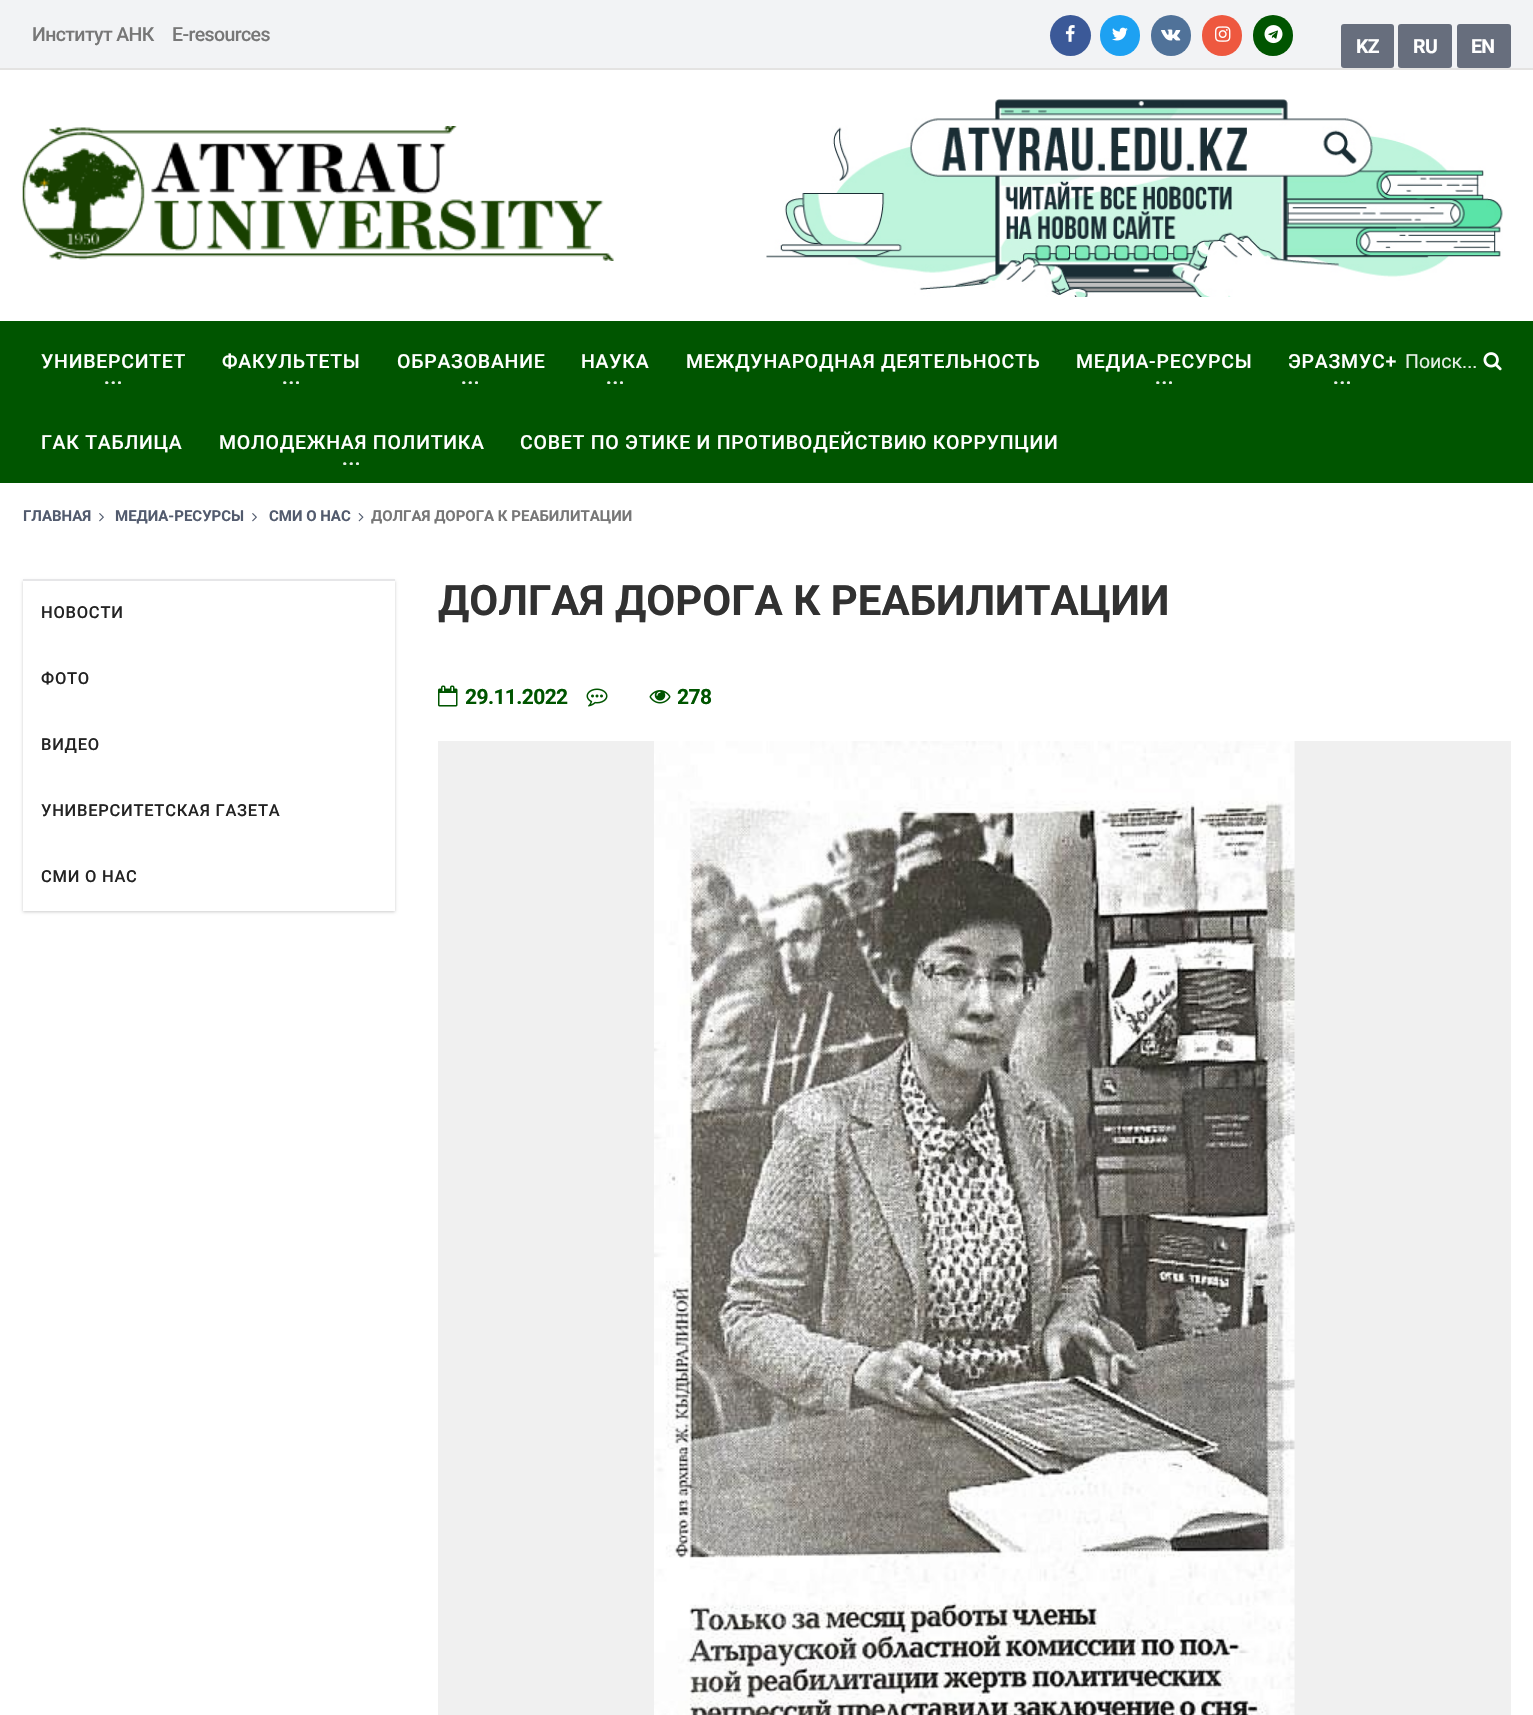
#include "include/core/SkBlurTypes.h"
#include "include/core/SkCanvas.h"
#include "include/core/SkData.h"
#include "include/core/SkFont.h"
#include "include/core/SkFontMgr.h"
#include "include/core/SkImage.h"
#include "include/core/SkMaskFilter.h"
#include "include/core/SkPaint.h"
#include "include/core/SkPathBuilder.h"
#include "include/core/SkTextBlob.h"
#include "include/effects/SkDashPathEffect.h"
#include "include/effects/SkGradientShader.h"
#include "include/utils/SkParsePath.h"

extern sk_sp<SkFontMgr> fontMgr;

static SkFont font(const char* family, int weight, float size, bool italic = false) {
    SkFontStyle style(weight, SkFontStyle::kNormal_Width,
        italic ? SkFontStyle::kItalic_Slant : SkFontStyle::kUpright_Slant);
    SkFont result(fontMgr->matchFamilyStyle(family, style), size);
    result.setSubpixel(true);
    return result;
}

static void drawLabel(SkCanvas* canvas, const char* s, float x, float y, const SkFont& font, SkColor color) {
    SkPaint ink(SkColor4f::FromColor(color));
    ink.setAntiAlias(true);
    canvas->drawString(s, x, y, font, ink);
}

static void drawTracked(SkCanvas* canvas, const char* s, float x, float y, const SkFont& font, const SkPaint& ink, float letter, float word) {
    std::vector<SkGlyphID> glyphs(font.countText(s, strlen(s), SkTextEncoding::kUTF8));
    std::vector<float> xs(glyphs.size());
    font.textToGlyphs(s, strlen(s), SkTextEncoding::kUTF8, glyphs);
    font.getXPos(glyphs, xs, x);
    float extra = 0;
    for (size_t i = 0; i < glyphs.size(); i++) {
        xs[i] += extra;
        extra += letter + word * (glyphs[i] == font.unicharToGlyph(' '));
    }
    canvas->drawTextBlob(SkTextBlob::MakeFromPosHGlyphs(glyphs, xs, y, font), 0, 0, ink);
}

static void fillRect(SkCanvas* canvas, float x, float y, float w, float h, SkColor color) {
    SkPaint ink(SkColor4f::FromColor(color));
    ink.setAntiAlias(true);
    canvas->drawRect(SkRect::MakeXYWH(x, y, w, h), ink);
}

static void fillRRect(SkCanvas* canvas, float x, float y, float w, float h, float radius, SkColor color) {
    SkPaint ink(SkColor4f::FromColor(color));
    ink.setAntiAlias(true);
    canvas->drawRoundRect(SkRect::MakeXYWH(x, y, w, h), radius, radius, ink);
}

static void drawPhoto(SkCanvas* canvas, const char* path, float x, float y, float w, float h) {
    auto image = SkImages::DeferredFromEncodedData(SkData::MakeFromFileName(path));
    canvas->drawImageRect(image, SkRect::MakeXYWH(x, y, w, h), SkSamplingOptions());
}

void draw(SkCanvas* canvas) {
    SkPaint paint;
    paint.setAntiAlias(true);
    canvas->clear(0xFFFFFFFF);
    fillRect(canvas, 0, 0, 1533, 68, 0xFFF2F3F5);
    fillRect(canvas, 0, 68, 1533, 2, 0xFFE4E3E2);
    SkFont font1 = font("Roboto", 500, 19.5f);
    paint.setColor(0xFF777777);
    drawTracked(canvas, "Институт АНК", 32, 41, font1, paint, -0.6f, 0);
    drawTracked(canvas, "E-resources", 172, 41, font1, paint, -0.6f, 0);
    paint.setColor(0xFF3B5998);
    canvas->drawCircle(1070.5f, 35.5f, 20.5f, paint);
    drawPhoto(canvas, "assets/img1.png", 1065, 25, 10, 17);
    fillRRect(canvas, 1100, 15, 40, 41, 20, 0xFF1DA1F2);
    drawPhoto(canvas, "assets/img2.png", 1112, 27, 16, 14);
    fillRRect(canvas, 1151, 15, 40, 41, 20, 0xFF507299);
    drawPhoto(canvas, "assets/img3.png", 1161, 29, 20, 12);
    fillRRect(canvas, 1202, 15, 40, 41, 20, 0xFFEE583F);
    drawPhoto(canvas, "assets/img4.png", 1215, 26, 16, 16);
    fillRRect(canvas, 1253, 15, 40, 41, 20, 0xFF005500);
    drawPhoto(canvas, "assets/img5.png", 1264, 25, 19, 19);
    fillRRect(canvas, 1341, 24, 53, 44, 3, 0xFF676E7D);
    SkFont font2 = font("Roboto", 700, 19.5f);
    paint.setColor(0xFFFFFFFF);
    drawTracked(canvas, "KZ", 1356, 53, font2, paint, -0.6f, 0);
    fillRRect(canvas, 1398, 24, 54, 44, 3, 0xFF676E7D);
    drawTracked(canvas, "RU", 1413, 53, font2, paint, -0.6f, 0);
    fillRRect(canvas, 1457, 24, 54, 44, 3, 0xFF676E7D);
    drawTracked(canvas, "EN", 1471, 53, font2, paint, -0.6f, 0);
    drawPhoto(canvas, "assets/img6.png", 22, 126, 592, 135);
    drawPhoto(canvas, "assets/img7.png", 766, 99, 737, 198);
    fillRect(canvas, 0, 321, 1533, 162, 0xFF005500);
    drawTracked(canvas, "УНИВЕРСИТЕТ", 41, 368, font1, paint, 0.75f, 0);
    paint.setColor(0xFFE6EEE6);
    drawTracked(canvas, "...", 104, 384, font2, paint, 0.75f, 0);
    paint.setColor(0xFFFFFFFF);
    drawTracked(canvas, "ФАКУЛЬТЕТЫ", 222, 368, font1, paint, 0.75f, 0);
    paint.setColor(0xFFE6EEE6);
    drawTracked(canvas, "...", 282, 384, font2, paint, 0.75f, 0);
    paint.setColor(0xFFFFFFFF);
    drawTracked(canvas, "ОБРАЗОВАНИЕ", 397, 368, font1, paint, 0.75f, 0);
    paint.setColor(0xFFE6EEE6);
    drawTracked(canvas, "...", 461, 384, font2, paint, 0.75f, 0);
    paint.setColor(0xFFFFFFFF);
    drawTracked(canvas, "НАУКА", 581, 368, font1, paint, 0.75f, 0);
    paint.setColor(0xFFE6EEE6);
    drawTracked(canvas, "...", 606, 384, font2, paint, 0.75f, 0);
    paint.setColor(0xFFFFFFFF);
    drawTracked(canvas, "МЕЖДУНАРОДНАЯ ДЕЯТЕЛЬНОСТЬ", 686, 368, font1, paint, 0.75f, 0);
    drawTracked(canvas, "МЕДИА-РЕСУРСЫ", 1076, 368, font1, paint, 0.75f, 0);
    paint.setColor(0xFFE6EEE6);
    drawTracked(canvas, "...", 1155, 384, font2, paint, 0.75f, 0);
    paint.setColor(0xFFFFFFFF);
    drawTracked(canvas, "ЭРАЗМУС+", 1288, 368, font1, paint, 0.75f, 0);
    paint.setColor(0xFFE6EEE6);
    drawTracked(canvas, "...", 1333, 384, font2, paint, 0.75f, 0);
    paint.setColor(0xFFFFFFFF);
    drawTracked(canvas, "ГАК ТАБЛИЦА", 41, 449, font1, paint, 0.75f, 0);
    drawTracked(canvas, "МОЛОДЕЖНАЯ ПОЛИТИКА", 219, 449, font1, paint, 0.75f, 0);
    paint.setColor(0xFFE6EEE6);
    drawTracked(canvas, "...", 342, 465, font2, paint, 0.75f, 0);
    paint.setColor(0xFFFFFFFF);
    drawTracked(canvas, "СОВЕТ ПО ЭТИКЕ И ПРОТИВОДЕЙСТВИЮ КОРРУПЦИИ", 520, 449, font1, paint, 0.75f, 0);
    SkFont font3 = font("Roboto", 400, 19.5f);
    drawLabel(canvas, "Поиск...", 1405, 368, font3, 0xFFE6EEE6);
    drawPhoto(canvas, "assets/img8.png", 1483, 352, 19, 19);
    SkFont font4 = font("Roboto", 700, 15);
    drawLabel(canvas, "ГЛАВНАЯ", 23, 521, font4, 0xFF525B6E);
    drawPhoto(canvas, "assets/img9.png", 99, 513, 5, 9);
    drawLabel(canvas, "МЕДИА-РЕСУРСЫ", 115, 521, font4, 0xFF525B6E);
    drawPhoto(canvas, "assets/img9.png", 252, 513, 5, 9);
    drawLabel(canvas, "СМИ О НАС", 269, 521, font4, 0xFF525B6E);
    drawPhoto(canvas, "assets/img10.png", 358, 513, 6, 9);
    drawLabel(canvas, "ДОЛГАЯ ДОРОГА К РЕАБИЛИТАЦИИ", 371, 521, font4, 0xFF777777);
    paint.setColor(0x33000000);
    paint.setMaskFilter(SkMaskFilter::MakeBlur(kNormal_SkBlurStyle, 1.5f));
    canvas->drawRect(SkRect::MakeXYWH(23, 581, 372, 331), paint);
    paint.setMaskFilter(nullptr);
    fillRect(canvas, 23, 579, 372, 2, 0xFFE6E6E8);
    fillRect(canvas, 23, 581, 372, 330, 0xFFFFFFFF);
    SkFont font5 = font("Roboto", 500, 16.5f);
    paint.setColor(0xFF232323);
    drawTracked(canvas, "НОВОСТИ", 41, 618, font5, paint, 0.75f, 0);
    drawTracked(canvas, "ФОТО", 41, 684, font5, paint, 0.75f, 0);
    drawTracked(canvas, "ВИДЕО", 41, 750, font5, paint, 0.75f, 0);
    drawTracked(canvas, "УНИВЕРСИТЕТСКАЯ ГАЗЕТА", 41, 816, font5, paint, 0.75f, 0);
    drawTracked(canvas, "СМИ О НАС", 41, 882, font5, paint, 0.75f, 0);
    SkFont font6 = font("Roboto", 700, 42);
    drawLabel(canvas, "ДОЛГАЯ ДОРОГА К РЕАБИЛИТАЦИИ", 438, 615, font6, 0xFF313131);
    drawPhoto(canvas, "assets/img11.png", 438, 685, 20, 22);
    SkFont font7 = font("Roboto", 700, 21);
    paint.setColor(0xFF005500);
    drawTracked(canvas, "29.11.2022", 465, 704, font7, paint, -0.6f, 0);
    drawPhoto(canvas, "assets/img12.png", 586, 688, 22, 19);
    drawPhoto(canvas, "assets/img13.png", 649, 690, 22, 14);
    drawTracked(canvas, "278", 677, 704, font7, paint, -0.6f, 0);
    fillRect(canvas, 438, 741, 1073, 974, 0xFFF0F0F0);
    drawPhoto(canvas, "assets/img14.png", 654, 741, 641, 974);
}
